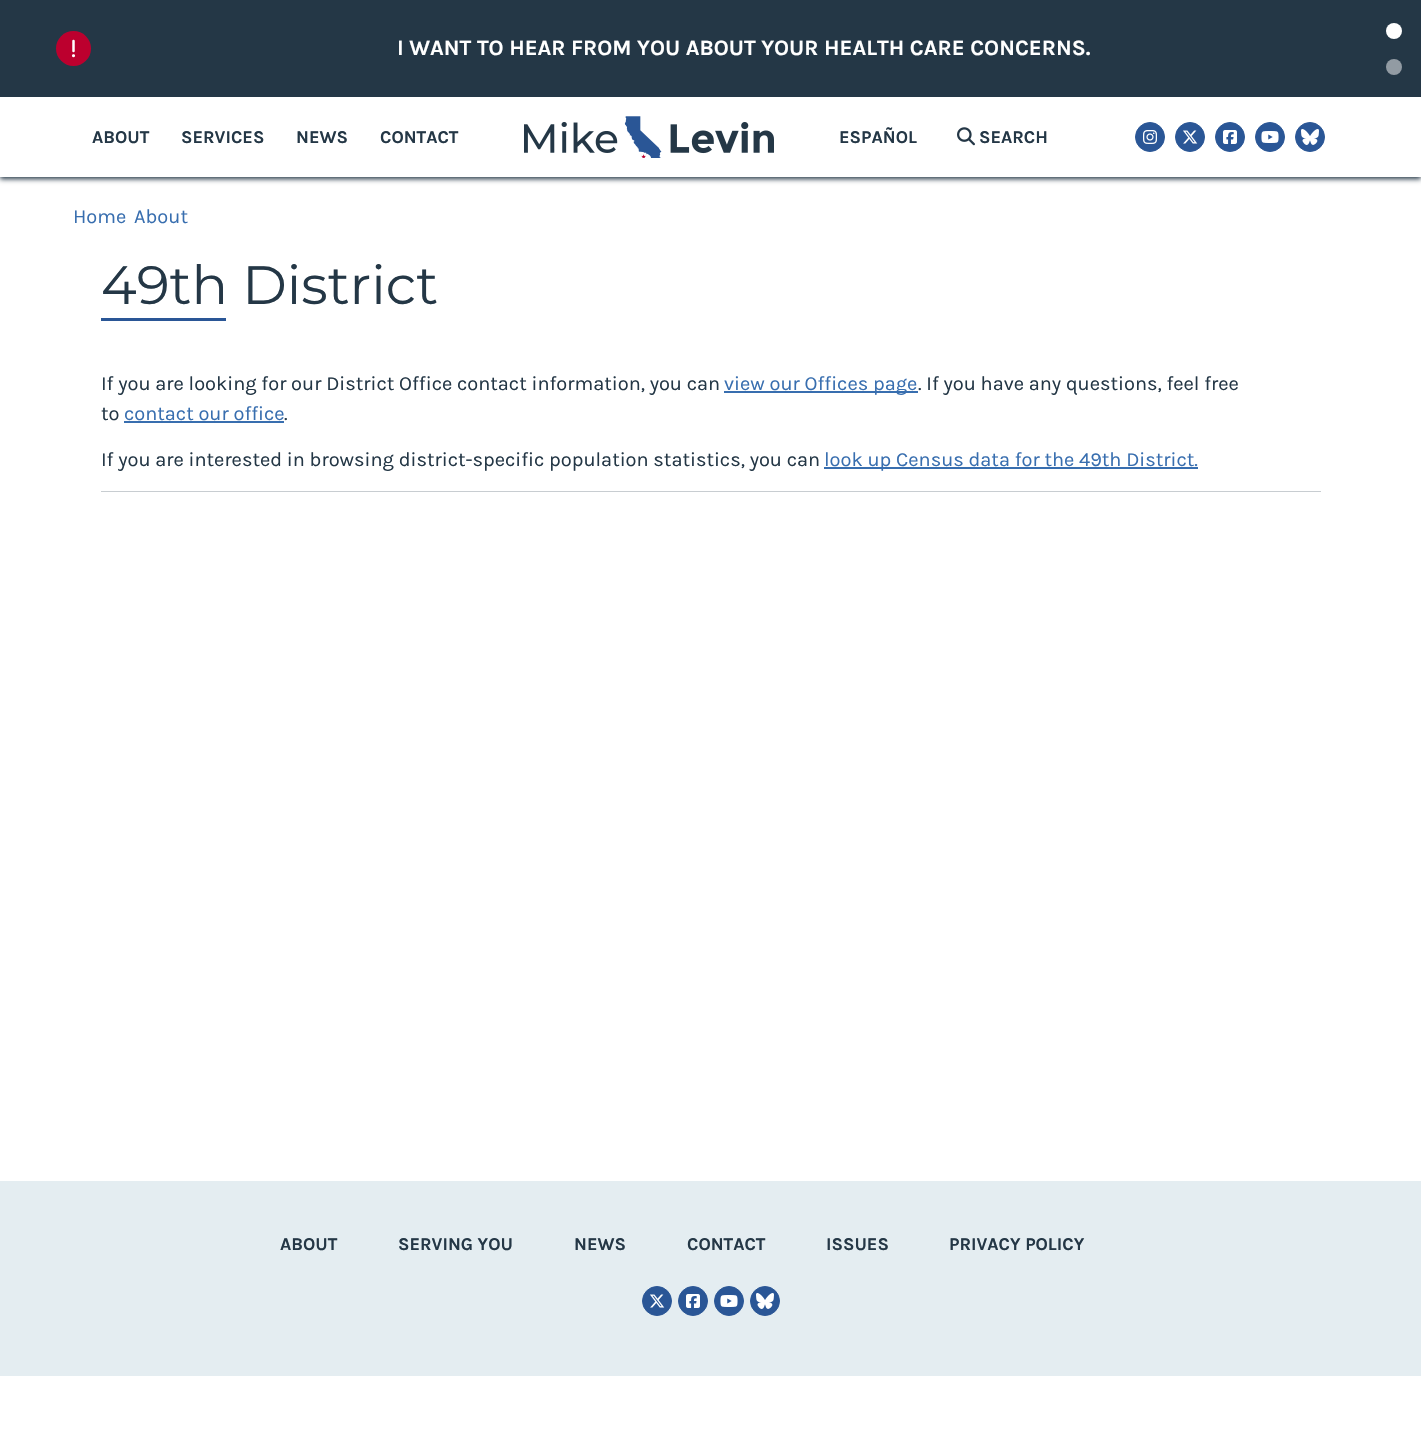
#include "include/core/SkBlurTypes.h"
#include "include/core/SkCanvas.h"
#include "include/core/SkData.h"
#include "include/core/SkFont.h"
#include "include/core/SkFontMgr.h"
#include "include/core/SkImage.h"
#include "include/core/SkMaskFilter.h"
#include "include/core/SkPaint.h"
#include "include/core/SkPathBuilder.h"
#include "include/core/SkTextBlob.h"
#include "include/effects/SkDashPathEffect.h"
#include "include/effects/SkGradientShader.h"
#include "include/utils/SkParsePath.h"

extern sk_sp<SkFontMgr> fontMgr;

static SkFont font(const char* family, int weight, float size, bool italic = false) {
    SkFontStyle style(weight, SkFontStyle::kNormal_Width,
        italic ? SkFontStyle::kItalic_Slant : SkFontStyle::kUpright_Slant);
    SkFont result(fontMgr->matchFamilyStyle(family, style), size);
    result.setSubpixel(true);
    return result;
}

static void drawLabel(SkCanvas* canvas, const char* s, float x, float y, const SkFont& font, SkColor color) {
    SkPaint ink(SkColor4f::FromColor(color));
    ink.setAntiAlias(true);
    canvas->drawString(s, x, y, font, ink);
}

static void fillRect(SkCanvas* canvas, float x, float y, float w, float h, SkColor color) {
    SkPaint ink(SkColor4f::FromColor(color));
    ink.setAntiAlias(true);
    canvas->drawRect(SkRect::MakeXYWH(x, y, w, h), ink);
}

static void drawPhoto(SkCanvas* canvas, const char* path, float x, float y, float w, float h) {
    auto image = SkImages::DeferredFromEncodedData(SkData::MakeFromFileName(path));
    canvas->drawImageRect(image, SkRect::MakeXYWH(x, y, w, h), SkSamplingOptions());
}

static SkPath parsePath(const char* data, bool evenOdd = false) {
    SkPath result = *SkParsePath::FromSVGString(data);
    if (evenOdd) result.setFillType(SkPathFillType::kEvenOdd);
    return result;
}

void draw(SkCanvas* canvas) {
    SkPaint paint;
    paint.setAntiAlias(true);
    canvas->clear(0xFFFFFFFF);
    fillRect(canvas, 0, 0, 1421, 97, 0xFF243746);
    paint.setColor(0xFFBC002E);
    canvas->drawCircle(73.5f, 48.5f, 17.5f, paint);
    drawPhoto(canvas, "assets/img1.png", 72, 39, 3, 19);
    SkFont font1 = font("Karla", 700, 22);
    drawLabel(canvas, "I WANT TO HEAR FROM YOU ABOUT YOUR HEALTH CARE CONCERNS.", 397, 55, font1, 0xFFFFFFFF);
    paint.setColor(0xFFFFFFFF);
    canvas->drawCircle(1394, 31, 8, paint);
    paint.setColor(0xFF929BA3);
    canvas->drawCircle(1394, 67, 8, paint);
    canvas->save();
    canvas->clipPath(parsePath("M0 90H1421V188H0ZM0 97H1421V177H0Z", true), true);
    paint.setColor(0xFF243746);
    paint.setMaskFilter(SkMaskFilter::MakeBlur(kNormal_SkBlurStyle, 2.5f));
    canvas->drawRect(SkRect::MakeXYWH(0, 99, 1421, 80), paint);
    paint.setMaskFilter(nullptr);
    canvas->restore();
    SkFont font2 = font("Karla", 700, 18);
    drawLabel(canvas, "ABOUT", 92, 143, font2, 0xFF243746);
    drawLabel(canvas, "SERVICES", 181, 143, font2, 0xFF243746);
    drawLabel(canvas, "NEWS", 296, 143, font2, 0xFF243746);
    drawLabel(canvas, "CONTACT", 380, 143, font2, 0xFF243746);
    drawPhoto(canvas, "assets/img2.png", 524, 116, 250, 42);
    drawLabel(canvas, "ESPAÑOL", 839, 143, font2, 0xFF243746);
    drawPhoto(canvas, "assets/img3.png", 957, 127, 18, 19);
    drawLabel(canvas, "SEARCH", 979, 143, font2, 0xFF243746);
    paint.setColor(0xFF2A5696);
    canvas->drawCircle(1150, 137, 14.5f, paint);
    paint.setStroke(true);
    paint.setStrokeWidth(1);
    canvas->drawCircle(1150, 137, 14.5f, paint);
    drawPhoto(canvas, "assets/img4.png", 1143, 130, 14, 14);
    paint.setStroke(false);
    canvas->drawCircle(1190, 137, 14.5f, paint);
    paint.setStroke(true);
    canvas->drawCircle(1190, 137, 14.5f, paint);
    drawPhoto(canvas, "assets/img5.png", 1183, 130, 15, 14);
    paint.setStroke(false);
    canvas->drawCircle(1230, 137, 14.5f, paint);
    paint.setStroke(true);
    canvas->drawCircle(1230, 137, 14.5f, paint);
    drawPhoto(canvas, "assets/img6.png", 1223, 130, 14, 14);
    paint.setStroke(false);
    canvas->drawCircle(1270, 137, 14.5f, paint);
    paint.setStroke(true);
    canvas->drawCircle(1270, 137, 14.5f, paint);
    drawPhoto(canvas, "assets/img7.png", 1261, 131, 18, 12);
    paint.setStroke(false);
    canvas->drawCircle(1310, 137, 14.5f, paint);
    paint.setStroke(true);
    canvas->drawCircle(1310, 137, 14.5f, paint);
    drawPhoto(canvas, "assets/img8.png", 1301, 129, 18, 16);
    SkFont font3 = font("Karla", 400, 20);
    drawLabel(canvas, "Home", 73, 223, font3, 0xFF386EAF);
    drawLabel(canvas, "About", 134, 223, font3, 0xFF386EAF);
    SkFont font4 = font("Montserrat", 400, 54);
    drawLabel(canvas, "49th District", 101, 304, font4, 0xFF243746);
    fillRect(canvas, 101, 318, 125, 3, 0xFF2A5696);
    drawLabel(canvas, "If you are looking for our District Office contact information, you can", 101, 390, font3, 0xFF243746);
    fillRect(canvas, 724, 391, 194, 2, 0xFF386EAF);
    drawLabel(canvas, "view our Offices page", 724, 390, font3, 0xFF386EAF);
    drawLabel(canvas, ". If you have any questions, feel free", 918, 390, font3, 0xFF243746);
    drawLabel(canvas, "to", 101, 420, font3, 0xFF243746);
    drawLabel(canvas, "contact our office", 124, 420, font3, 0xFF386EAF);
    fillRect(canvas, 124, 421, 160, 2, 0xFF386EAF);
    drawLabel(canvas, ".", 284, 420, font3, 0xFF243746);
    drawLabel(canvas, "If you are interested in browsing district-specific population statistics, you can", 101, 466, font3, 0xFF243746);
    fillRect(canvas, 824, 467, 374, 2, 0xFF386EAF);
    drawLabel(canvas, "look up Census data for the 49th District.", 824, 466, font3, 0xFF386EAF);
    fillRect(canvas, 101, 491, 1220, 1, 0xFFC8CDD1);
    fillRect(canvas, 0, 1181, 1421, 195, 0xFFE4EDF1);
    drawLabel(canvas, "ABOUT", 280, 1250, font2, 0xFF243746);
    drawLabel(canvas, "SERVING YOU", 398, 1250, font2, 0xFF243746);
    drawLabel(canvas, "NEWS", 574, 1250, font2, 0xFF243746);
    drawLabel(canvas, "CONTACT", 687, 1250, font2, 0xFF243746);
    drawLabel(canvas, "ISSUES", 826, 1250, font2, 0xFF243746);
    drawLabel(canvas, "PRIVACY POLICY", 949, 1250, font2, 0xFF243746);
    paint.setStroke(false);
    canvas->drawCircle(657, 1301, 14.5f, paint);
    paint.setStroke(true);
    canvas->drawCircle(657, 1301, 14.5f, paint);
    drawPhoto(canvas, "assets/img5.png", 650, 1294, 15, 14);
    paint.setStroke(false);
    canvas->drawCircle(693, 1301, 14.5f, paint);
    paint.setStroke(true);
    canvas->drawCircle(693, 1301, 14.5f, paint);
    drawPhoto(canvas, "assets/img6.png", 686, 1294, 14, 14);
    paint.setStroke(false);
    canvas->drawCircle(729, 1301, 14.5f, paint);
    paint.setStroke(true);
    canvas->drawCircle(729, 1301, 14.5f, paint);
    drawPhoto(canvas, "assets/img7.png", 720, 1295, 18, 12);
    paint.setStroke(false);
    canvas->drawCircle(765, 1301, 14.5f, paint);
    paint.setStroke(true);
    canvas->drawCircle(765, 1301, 14.5f, paint);
    drawPhoto(canvas, "assets/img8.png", 756, 1293, 18, 16);
}
